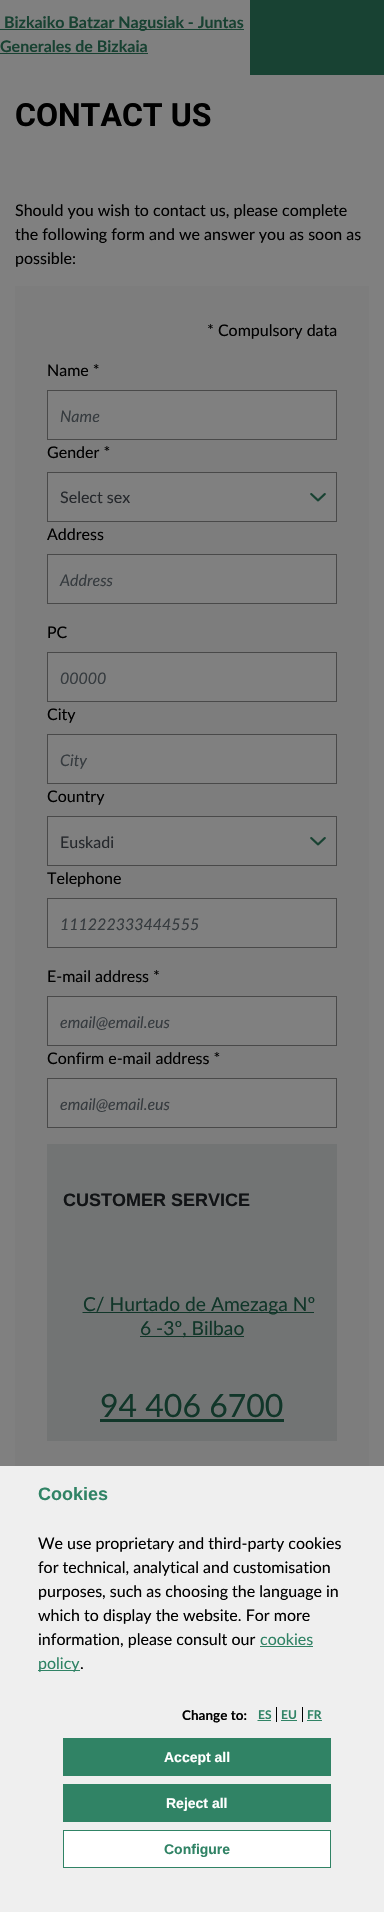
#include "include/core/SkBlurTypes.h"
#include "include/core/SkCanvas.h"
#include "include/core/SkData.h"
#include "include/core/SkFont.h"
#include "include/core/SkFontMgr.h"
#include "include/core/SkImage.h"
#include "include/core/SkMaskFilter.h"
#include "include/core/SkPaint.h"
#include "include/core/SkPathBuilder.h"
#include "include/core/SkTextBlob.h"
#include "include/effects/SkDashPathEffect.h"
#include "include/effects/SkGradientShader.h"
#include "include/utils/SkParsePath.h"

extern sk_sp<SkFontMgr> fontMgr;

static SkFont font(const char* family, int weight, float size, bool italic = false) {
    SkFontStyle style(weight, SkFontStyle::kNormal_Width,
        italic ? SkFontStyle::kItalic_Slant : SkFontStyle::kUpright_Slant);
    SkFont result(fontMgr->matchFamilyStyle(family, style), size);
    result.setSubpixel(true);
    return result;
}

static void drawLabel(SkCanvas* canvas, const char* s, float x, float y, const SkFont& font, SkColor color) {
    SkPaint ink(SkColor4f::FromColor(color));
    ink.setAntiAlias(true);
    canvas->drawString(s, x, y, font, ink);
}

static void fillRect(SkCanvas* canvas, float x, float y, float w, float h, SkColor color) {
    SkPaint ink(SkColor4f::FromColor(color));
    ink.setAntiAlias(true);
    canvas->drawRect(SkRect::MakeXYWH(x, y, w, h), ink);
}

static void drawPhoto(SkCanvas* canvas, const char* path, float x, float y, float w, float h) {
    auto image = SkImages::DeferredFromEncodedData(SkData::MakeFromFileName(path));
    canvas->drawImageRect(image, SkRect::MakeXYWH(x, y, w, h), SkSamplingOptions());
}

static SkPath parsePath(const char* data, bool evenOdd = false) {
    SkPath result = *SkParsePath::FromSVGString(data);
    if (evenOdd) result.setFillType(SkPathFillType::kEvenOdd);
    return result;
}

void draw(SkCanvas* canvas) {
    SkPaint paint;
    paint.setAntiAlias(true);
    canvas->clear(0xFF808080);
    fillRect(canvas, 0, 29, 244, 1, 0xFF184232);
    SkFont font1 = font("Lato", 700, 16);
    drawLabel(canvas, "Bizkaiko Batzar Nagusiak - Juntas", 4, 28, font1, 0xFF184232);
    drawLabel(canvas, "Generales de Bizkaia", 0, 52, font1, 0xFF184232);
    fillRect(canvas, 0, 53, 148, 1, 0xFF184232);
    fillRect(canvas, 250, 0, 134, 75, 0xFF184233);
    SkFont font2 = font("Roboto", 700, 32);
    drawLabel(canvas, "CONTACT US", 15, 126, font2, 0xFF000000);
    SkFont font3 = font("Lato", 400, 16);
    drawLabel(canvas, "Should you wish to contact us, please complete", 15, 216, font3, 0xFF000000);
    drawLabel(canvas, "the following form and we answer you as soon as", 15, 240, font3, 0xFF000000);
    drawLabel(canvas, "possible:", 15, 264, font3, 0xFF000000);
    fillRect(canvas, 15, 286, 354, 1180, 0xFF7D7D7D);
    drawLabel(canvas, "* Compulsory data", 207, 336, font3, 0xFF000000);
    drawLabel(canvas, "Name *", 47, 376, font3, 0xFF000000);
    paint.setColor(0xFF808080);
    canvas->drawRect(SkRect::MakeXYWH(47.5f, 390.5f, 289, 49), paint);
    paint.setStroke(true);
    paint.setStrokeWidth(1);
    paint.setColor(0xFF494949);
    canvas->drawRect(SkRect::MakeXYWH(47.5f, 390.5f, 289, 49), paint);
    SkFont font4 = font("Lato", 400, 16, true);
    drawLabel(canvas, "Name", 60, 422, font4, 0xFF363B3F);
    drawLabel(canvas, "Gender *", 47, 458, font3, 0xFF000000);
    fillRect(canvas, 48, 473, 288, 48, 0xFF808080);
    drawPhoto(canvas, "assets/img1.png", 310, 493, 16, 9);
    canvas->drawRect(SkRect::MakeXYWH(47.5f, 472.5f, 289, 49), paint);
    drawLabel(canvas, "Select sex", 60, 503, font3, 0xFF25282C);
    drawLabel(canvas, "Address", 47, 540, font3, 0xFF000000);
    paint.setStroke(false);
    paint.setColor(0xFF808080);
    canvas->drawRect(SkRect::MakeXYWH(47.5f, 554.5f, 289, 49), paint);
    paint.setStroke(true);
    paint.setColor(0xFF494949);
    canvas->drawRect(SkRect::MakeXYWH(47.5f, 554.5f, 289, 49), paint);
    drawLabel(canvas, "Address", 60, 586, font4, 0xFF363B3F);
    drawLabel(canvas, "PC", 47, 638, font3, 0xFF000000);
    paint.setStroke(false);
    paint.setColor(0xFF808080);
    canvas->drawRect(SkRect::MakeXYWH(47.5f, 652.5f, 289, 49), paint);
    paint.setStroke(true);
    paint.setColor(0xFF494949);
    canvas->drawRect(SkRect::MakeXYWH(47.5f, 652.5f, 289, 49), paint);
    drawLabel(canvas, "00000", 60, 684, font4, 0xFF363B3F);
    drawLabel(canvas, "City", 47, 720, font3, 0xFF000000);
    paint.setStroke(false);
    paint.setColor(0xFF808080);
    canvas->drawRect(SkRect::MakeXYWH(47.5f, 734.5f, 289, 49), paint);
    paint.setStroke(true);
    paint.setColor(0xFF494949);
    canvas->drawRect(SkRect::MakeXYWH(47.5f, 734.5f, 289, 49), paint);
    drawLabel(canvas, "City", 60, 766, font4, 0xFF363B3F);
    drawLabel(canvas, "Country", 47, 802, font3, 0xFF000000);
    fillRect(canvas, 48, 817, 288, 48, 0xFF808080);
    drawPhoto(canvas, "assets/img1.png", 310, 837, 16, 9);
    canvas->drawRect(SkRect::MakeXYWH(47.5f, 816.5f, 289, 49), paint);
    drawLabel(canvas, "Euskadi", 60, 848, font3, 0xFF25282C);
    drawLabel(canvas, "Telephone", 47, 884, font3, 0xFF000000);
    paint.setStroke(false);
    paint.setColor(0xFF808080);
    canvas->drawRect(SkRect::MakeXYWH(47.5f, 898.5f, 289, 49), paint);
    paint.setStroke(true);
    paint.setColor(0xFF494949);
    canvas->drawRect(SkRect::MakeXYWH(47.5f, 898.5f, 289, 49), paint);
    drawLabel(canvas, "111222333444555", 60, 930, font4, 0xFF363B3F);
    drawLabel(canvas, "E-mail address *", 47, 982, font3, 0xFF000000);
    paint.setStroke(false);
    paint.setColor(0xFF808080);
    canvas->drawRect(SkRect::MakeXYWH(47.5f, 996.5f, 289, 49), paint);
    paint.setStroke(true);
    paint.setColor(0xFF494949);
    canvas->drawRect(SkRect::MakeXYWH(47.5f, 996.5f, 289, 49), paint);
    drawLabel(canvas, "email@email.eus", 60, 1028, font4, 0xFF363B3F);
    drawLabel(canvas, "Confirm e-mail address *", 47, 1064, font3, 0xFF000000);
    paint.setStroke(false);
    paint.setColor(0xFF808080);
    canvas->drawRect(SkRect::MakeXYWH(47.5f, 1078.5f, 289, 49), paint);
    paint.setStroke(true);
    paint.setColor(0xFF494949);
    canvas->drawRect(SkRect::MakeXYWH(47.5f, 1078.5f, 289, 49), paint);
    drawLabel(canvas, "email@email.eus", 60, 1110, font4, 0xFF363B3F);
    fillRect(canvas, 47, 1144, 290, 297, 0xFF727474);
    SkFont font5 = font("Liberation Sans", 700, 18);
    drawLabel(canvas, "CUSTOMER SERVICE", 63, 1206, font5, 0xFF111315);
    paint.setColor(0xFF113629);
    paint.setPathEffect(SkDashPathEffect::Make({{1, 1}}, 0));
    canvas->drawPath(parsePath("M82.5 1312.5H95.5"), paint);
    paint.setPathEffect(nullptr);
    fillRect(canvas, 83, 1312, 209, 1, 0xFF113629);
    SkFont font6 = font("Lato", 400, 19.25f);
    drawLabel(canvas, "C/ Hurtado de Amezaga Nº", 83, 1311, font6, 0xFF113629);
    paint.setPathEffect(SkDashPathEffect::Make({{1, 1}}, 0));
    canvas->drawPath(parsePath("M291.5 1312.5H314"), paint);
    paint.setPathEffect(nullptr);
    fillRect(canvas, 292, 1312, 22, 1, 0xFF113629);
    fillRect(canvas, 140, 1336, 104, 1, 0xFF113629);
    drawLabel(canvas, "6 -3º, Bilbao", 140, 1335, font6, 0xFF113629);
    SkFont font7 = font("Lato", 400, 32);
    drawLabel(canvas, "94 406 6700", 100, 1417, font7, 0xFF113629);
    fillRect(canvas, 100, 1419, 184, 3, 0xFF113629);
    fillRect(canvas, 0, 1466, 384, 446, 0xFFEFEFEF);
    drawLabel(canvas, "Cookies", 38, 1500, font5, 0xFF308365);
    drawLabel(canvas, "We use proprietary and third-party cookies", 38, 1549, font3, 0xFF000000);
    drawLabel(canvas, "for technical, analytical and customisation", 38, 1573, font3, 0xFF000000);
    drawLabel(canvas, "purposes, such as choosing the language in", 38, 1597, font3, 0xFF000000);
    drawLabel(canvas, "which to display the website. For more", 38, 1621, font3, 0xFF000000);
    drawLabel(canvas, "information, please consult our", 38, 1645, font3, 0xFF000000);
    drawLabel(canvas, "cookies", 260, 1645, font3, 0xFF308365);
    fillRect(canvas, 260, 1646, 53, 1, 0xFF308365);
    fillRect(canvas, 38, 1670, 42, 1, 0xFF308365);
    drawLabel(canvas, "policy", 38, 1669, font3, 0xFF308365);
    drawLabel(canvas, ".", 80, 1669, font3, 0xFF000000);
    SkFont font8 = font("Lato", 700, 13.5f);
    drawLabel(canvas, "Change to:", 182, 1720, font8, 0xFF000000);
    fillRect(canvas, 276, 1707, 1, 15, 0xFF000000);
    SkFont font9 = font("Lato", 700, 12);
    drawLabel(canvas, "ES", 258, 1719, font9, 0xFF308365);
    paint.setColor(0xFF308365);
    paint.setPathEffect(SkDashPathEffect::Make({{1, 1}}, 0));
    canvas->drawPath(parsePath("M257.5 1720.5H271"), paint);
    paint.setPathEffect(nullptr);
    fillRect(canvas, 258, 1720, 13, 1, 0xFF308365);
    fillRect(canvas, 302, 1707, 1, 15, 0xFF000000);
    drawLabel(canvas, "EU", 281, 1719, font9, 0xFF308365);
    fillRect(canvas, 281, 1720, 16, 1, 0xFF308365);
    drawLabel(canvas, "FR", 307, 1719, font9, 0xFF308365);
    fillRect(canvas, 307, 1720, 15, 1, 0xFF308365);
    fillRect(canvas, 63, 1738, 268, 38, 0xFF308365);
    SkFont font10 = font("Liberation Sans", 700, 14);
    drawLabel(canvas, "Accept all", 164, 1762, font10, 0xFFFFFFFF);
    fillRect(canvas, 63, 1784, 268, 38, 0xFF308365);
    drawLabel(canvas, "Reject all", 166, 1808, font10, 0xFFFFFFFF);
    paint.setStroke(false);
    paint.setColor(0xFFFFFFFF);
    canvas->drawRect(SkRect::MakeXYWH(63.5f, 1830.5f, 267, 37), paint);
    paint.setStroke(true);
    paint.setColor(0xFF308365);
    canvas->drawRect(SkRect::MakeXYWH(63.5f, 1830.5f, 267, 37), paint);
    drawLabel(canvas, "Configure", 164, 1854, font10, 0xFF308365);
}
